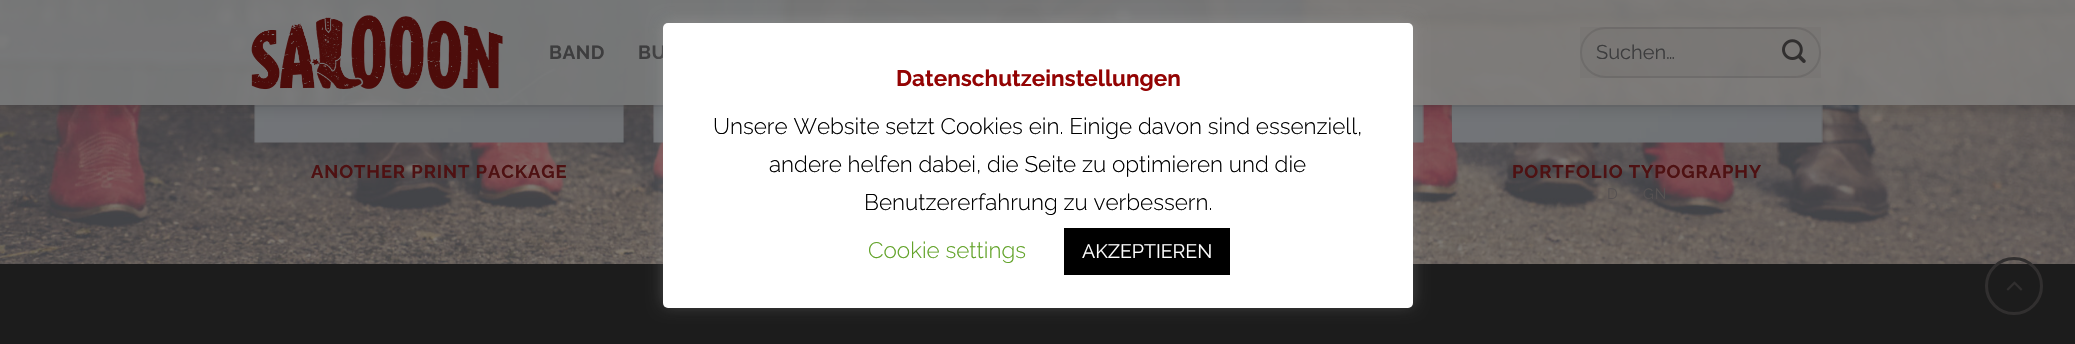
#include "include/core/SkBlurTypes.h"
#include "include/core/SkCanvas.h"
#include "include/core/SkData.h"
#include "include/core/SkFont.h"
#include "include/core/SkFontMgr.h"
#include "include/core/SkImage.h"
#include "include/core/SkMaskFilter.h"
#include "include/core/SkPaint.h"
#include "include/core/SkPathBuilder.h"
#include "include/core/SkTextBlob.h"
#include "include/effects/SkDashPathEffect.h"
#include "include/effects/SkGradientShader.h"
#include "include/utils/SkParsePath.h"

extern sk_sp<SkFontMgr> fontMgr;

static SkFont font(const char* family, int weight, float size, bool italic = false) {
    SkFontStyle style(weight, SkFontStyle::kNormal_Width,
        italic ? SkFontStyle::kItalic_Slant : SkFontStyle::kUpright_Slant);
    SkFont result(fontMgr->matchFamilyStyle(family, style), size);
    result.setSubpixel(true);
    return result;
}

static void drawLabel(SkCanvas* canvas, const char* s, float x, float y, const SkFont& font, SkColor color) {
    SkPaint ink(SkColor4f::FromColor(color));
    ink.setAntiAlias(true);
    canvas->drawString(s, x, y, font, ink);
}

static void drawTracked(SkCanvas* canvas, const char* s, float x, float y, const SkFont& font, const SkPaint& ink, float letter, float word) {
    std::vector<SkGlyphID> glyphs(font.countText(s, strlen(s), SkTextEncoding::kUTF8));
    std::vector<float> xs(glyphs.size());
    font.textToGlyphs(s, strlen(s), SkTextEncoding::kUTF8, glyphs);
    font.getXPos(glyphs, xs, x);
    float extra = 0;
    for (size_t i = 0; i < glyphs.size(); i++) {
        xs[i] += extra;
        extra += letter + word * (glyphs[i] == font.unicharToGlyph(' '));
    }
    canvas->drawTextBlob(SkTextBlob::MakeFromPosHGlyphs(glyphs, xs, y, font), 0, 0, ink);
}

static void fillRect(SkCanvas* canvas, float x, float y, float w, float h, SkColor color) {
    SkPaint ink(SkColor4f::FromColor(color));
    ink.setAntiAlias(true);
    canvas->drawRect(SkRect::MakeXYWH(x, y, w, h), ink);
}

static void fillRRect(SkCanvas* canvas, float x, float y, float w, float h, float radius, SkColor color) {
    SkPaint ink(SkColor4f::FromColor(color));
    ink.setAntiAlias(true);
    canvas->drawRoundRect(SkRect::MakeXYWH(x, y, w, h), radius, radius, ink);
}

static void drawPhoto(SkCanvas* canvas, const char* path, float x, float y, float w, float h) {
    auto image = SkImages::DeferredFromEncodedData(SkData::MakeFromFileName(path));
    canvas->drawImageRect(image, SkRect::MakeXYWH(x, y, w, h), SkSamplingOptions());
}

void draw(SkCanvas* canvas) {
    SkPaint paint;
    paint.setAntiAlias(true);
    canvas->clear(0xFFFFFFFF);
    drawPhoto(canvas, "assets/img1.png", 0, 105, 2075, 159);
    fillRect(canvas, 0, 105, 2075, 159, 0x4A808080);
    drawPhoto(canvas, "assets/img5.png", 653, 105, 10, 38);
    drawPhoto(canvas, "assets/img6.png", 1413, 105, 11, 38);
    drawPhoto(canvas, "assets/img7.png", 254, 105, 370, 38);
    drawPhoto(canvas, "assets/img8.png", 1452, 105, 371, 38);
    paint.setColor(0x26000000);
    paint.setMaskFilter(SkMaskFilter::MakeBlur(kNormal_SkBlurStyle, 7.5f));
    canvas->drawRect(SkRect::MakeXYWH(2, 2, 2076, 105), paint);
    paint.setMaskFilter(nullptr);
    drawPhoto(canvas, "assets/img2.png", 0, 0, 2075, 105);
    drawPhoto(canvas, "assets/img3.png", 251, 15, 252, 75);
    SkFont font1 = font("Raleway", 700, 19);
    paint.setColor(0xFF3D3D3E);
    drawTracked(canvas, "BAND", 549, 59, font1, paint, 0.5f, 0);
    drawTracked(canvas, "BU", 638, 59, font1, paint, 0.5f, 0);
    fillRect(canvas, 1580, 27, 241, 51, 0x08000000);
    paint.setStroke(true);
    paint.setStrokeWidth(2);
    paint.setColor(0x17000000);
    canvas->drawRoundRect(SkRect::MakeXYWH(1581, 28, 239, 49), 24.5f, 24.5f, paint);
    SkFont font2 = font("Raleway", 400, 20);
    drawLabel(canvas, "Suchen…", 1596, 59, font2, 0xFF3D3D3E);
    drawPhoto(canvas, "assets/img4.png", 1782, 39, 24, 24);
    fillRect(canvas, 251, 105, 1575, 2, 0x1A312F2F);
    SkFont font3 = font("Raleway", 700, 18.4f);
    paint.setStroke(false);
    paint.setColor(0xFF4E1112);
    drawTracked(canvas, "ANOTHER PRINT PACKAGE", 311, 178, font3, paint, 0.9f, 0);
    drawTracked(canvas, "PORTFOLIO TYPOGRAPHY", 1512, 178, font3, paint, 0.9f, 0);
    SkFont font4 = font("Raleway", 400, 15);
    paint.setColor(0xFF575252);
    drawTracked(canvas, "D", 1607, 199, font4, paint, 1, 0);
    drawTracked(canvas, "GN", 1643, 199, font4, paint, 1, 0);
    fillRect(canvas, 0, 264, 2075, 80, 0xFF1C1C1C);
    paint.setStroke(true);
    paint.setStrokeWidth(3);
    paint.setColor(0xFF312F2F);
    canvas->drawCircle(2014, 286, 27.5f, paint);
    drawPhoto(canvas, "assets/img9.png", 2006, 281, 17, 10);
    paint.setStroke(false);
    paint.setColor(0x4DACABAB);
    paint.setMaskFilter(SkMaskFilter::MakeBlur(kNormal_SkBlurStyle, 7.5f));
    canvas->drawRoundRect(SkRect::MakeXYWH(663, 21, 750, 285), 5, 5, paint);
    paint.setMaskFilter(nullptr);
    fillRRect(canvas, 663, 23, 750, 285, 5, 0xFFFFFFFF);
    SkFont font5 = font("Raleway", 700, 22.5f);
    drawLabel(canvas, "Datenschutzeinstellungen", 896, 86, font5, 0xFF930303);
    SkFont font6 = font("Raleway", 300, 22.5f);
    drawLabel(canvas, "Unsere Website setzt Cookies ein. Einige davon sind essenziell,", 713, 134, font6, 0xFF000000);
    drawLabel(canvas, "andere helfen dabei, die Seite zu optimieren und die", 769, 172, font6, 0xFF000000);
    drawLabel(canvas, "Benutzererfahrung zu verbessern.", 864, 210, font6, 0xFF000000);
    drawLabel(canvas, "Cookie settings", 868, 258, font6, 0xFF62A329);
    fillRect(canvas, 1064, 228, 166, 47, 0xFF000000);
    SkFont font7 = font("Raleway", 400, 19.5f);
    drawLabel(canvas, "AKZEPTIEREN", 1082, 258, font7, 0xFFFFFFFF);
}
